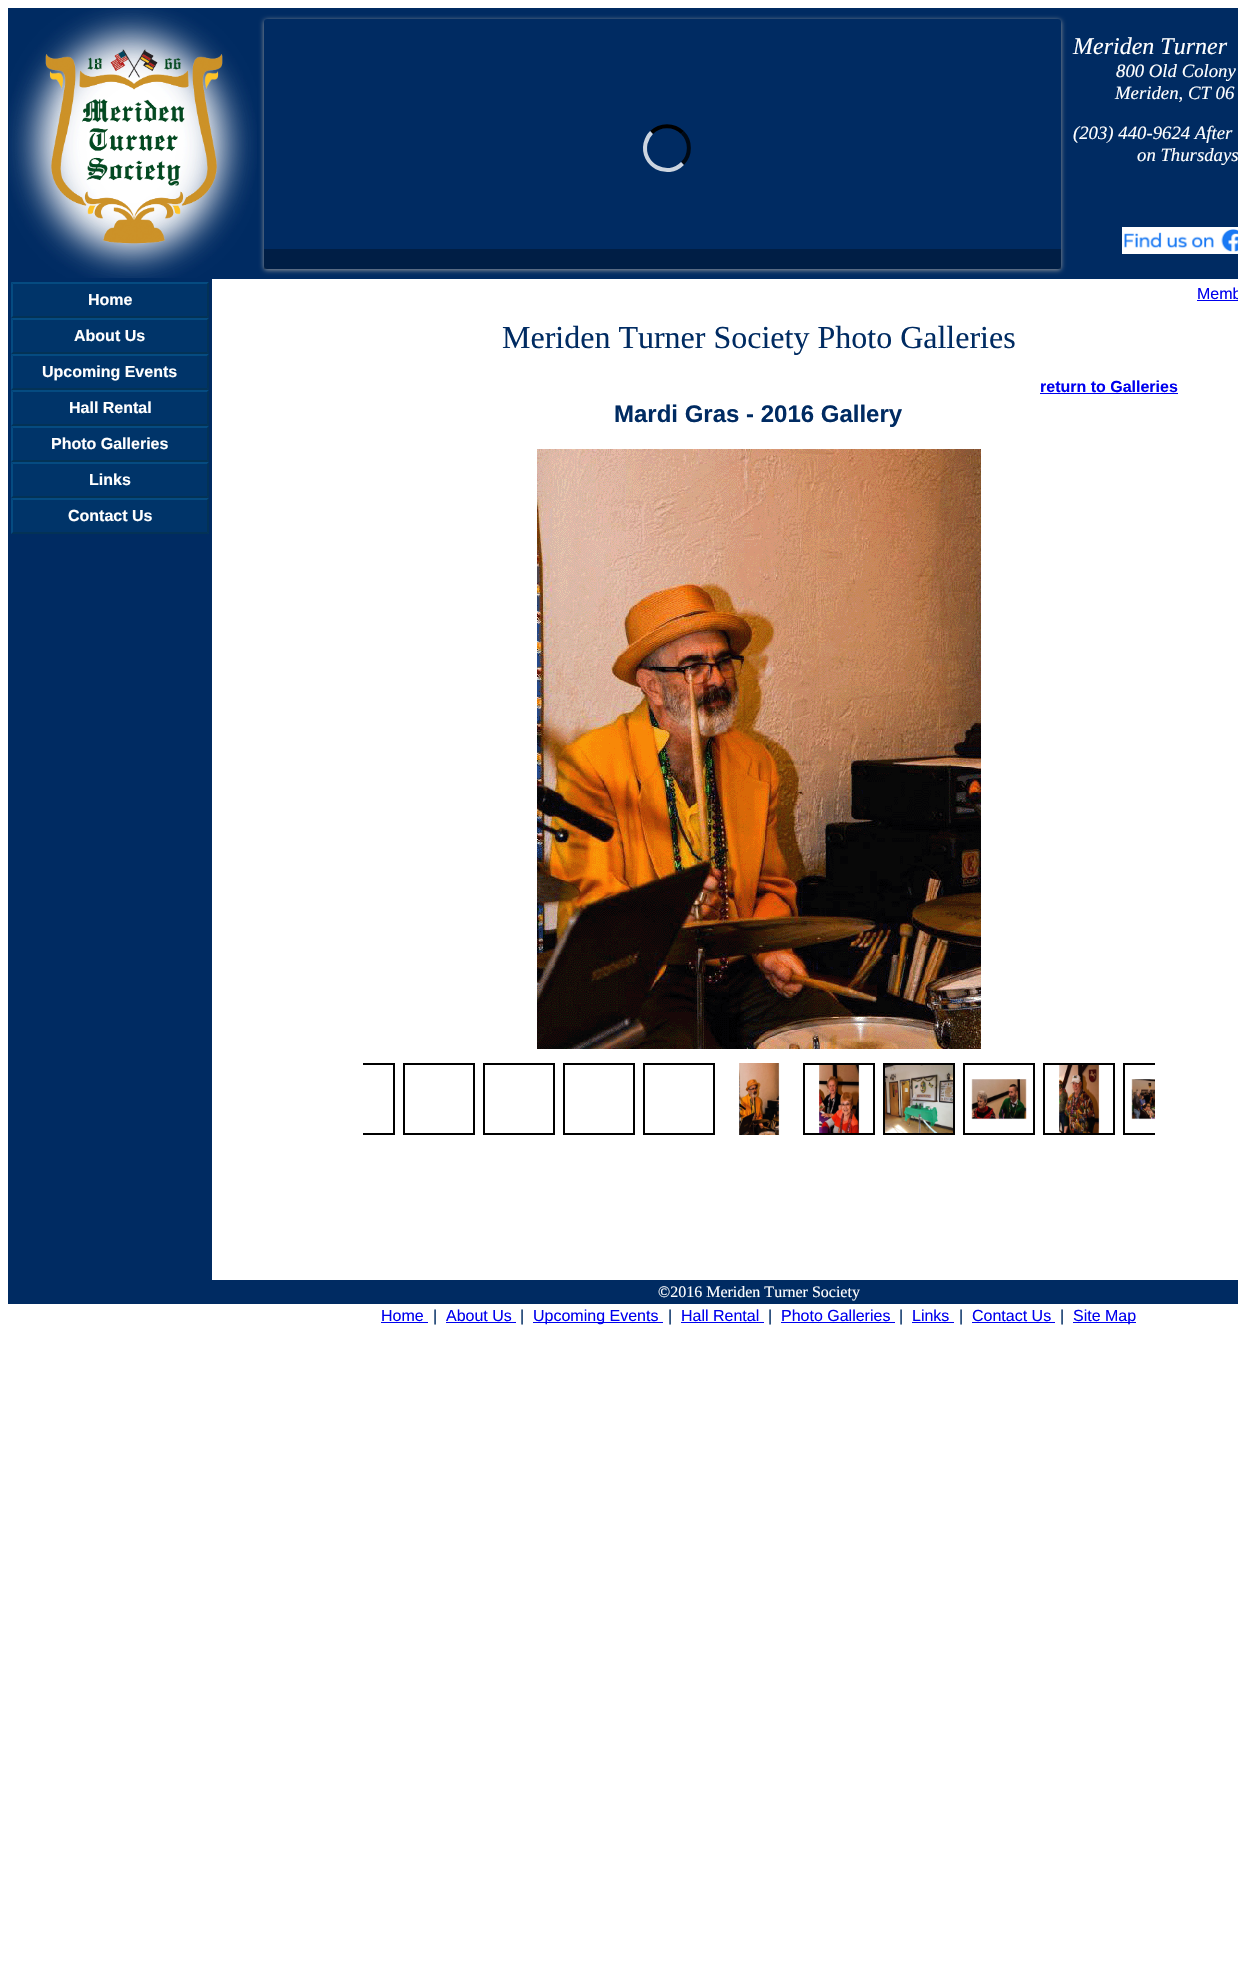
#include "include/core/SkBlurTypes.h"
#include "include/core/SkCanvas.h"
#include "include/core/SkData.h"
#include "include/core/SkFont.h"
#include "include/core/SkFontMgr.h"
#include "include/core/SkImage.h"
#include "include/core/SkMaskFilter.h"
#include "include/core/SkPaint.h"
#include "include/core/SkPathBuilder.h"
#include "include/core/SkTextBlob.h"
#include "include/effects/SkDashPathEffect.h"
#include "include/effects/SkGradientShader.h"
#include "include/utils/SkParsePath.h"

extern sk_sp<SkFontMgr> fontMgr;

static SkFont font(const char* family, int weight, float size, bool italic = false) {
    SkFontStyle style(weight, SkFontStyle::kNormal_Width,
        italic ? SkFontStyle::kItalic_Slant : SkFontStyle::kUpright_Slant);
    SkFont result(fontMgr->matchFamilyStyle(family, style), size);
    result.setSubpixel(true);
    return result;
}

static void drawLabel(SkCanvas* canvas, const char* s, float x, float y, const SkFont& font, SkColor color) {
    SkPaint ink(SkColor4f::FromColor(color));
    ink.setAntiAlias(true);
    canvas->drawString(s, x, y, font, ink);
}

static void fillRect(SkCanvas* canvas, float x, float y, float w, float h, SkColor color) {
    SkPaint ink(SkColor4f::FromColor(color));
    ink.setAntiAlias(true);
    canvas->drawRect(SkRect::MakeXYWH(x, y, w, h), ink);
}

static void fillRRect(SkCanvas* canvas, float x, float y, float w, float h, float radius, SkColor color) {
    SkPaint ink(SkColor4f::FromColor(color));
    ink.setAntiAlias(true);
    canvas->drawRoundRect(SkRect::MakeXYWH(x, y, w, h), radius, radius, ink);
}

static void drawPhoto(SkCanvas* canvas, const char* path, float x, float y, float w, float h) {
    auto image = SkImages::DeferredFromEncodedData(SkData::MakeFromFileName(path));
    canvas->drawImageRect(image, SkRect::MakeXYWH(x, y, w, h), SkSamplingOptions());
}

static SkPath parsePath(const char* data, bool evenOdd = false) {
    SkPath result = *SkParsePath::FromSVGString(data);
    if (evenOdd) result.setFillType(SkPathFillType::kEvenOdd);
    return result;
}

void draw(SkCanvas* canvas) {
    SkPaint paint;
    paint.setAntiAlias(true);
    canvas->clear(0xFFFFFFFF);
    fillRect(canvas, 8, 8, 1230, 271, 0xFF002B62);
    drawPhoto(canvas, "assets/img1.png", 9, 9, 248, 269);
    paint.setColor(0xFF999999);
    paint.setMaskFilter(SkMaskFilter::MakeBlur(kNormal_SkBlurStyle, 2.5f));
    canvas->drawRoundRect(SkRect::MakeXYWH(264, 20, 797, 250), 3, 3, paint);
    paint.setMaskFilter(nullptr);
    fillRRect(canvas, 264, 19, 797, 250, 3, 0xFF002B62);
    paint.setStroke(true);
    paint.setStrokeWidth(4);
    paint.setColor(0xFF000000);
    canvas->drawPath(parsePath("M651.5 132.5C660 124 674 124 682.5 132.5"), paint);
    paint.setColor(0xCC000000);
    canvas->drawPath(parsePath("M682.5 132.5C691 141 691 155 682.5 163.5"), paint);
    paint.setColor(0xCCFFFFFF);
    canvas->drawPath(parsePath("M682.5 163.5C667.5 179 641 165 645.5 143.5C646.5 139.5 648.5 135.5 651.5 132.5"), paint);
    fillRect(canvas, 264, 249, 797, 20, 0x4D000000);
    SkFont font1 = font("Liberation Serif", 400, 24, true);
    drawLabel(canvas, "Meriden Turner", 1073, 54, font1, 0xFFFFFFFF);
    SkFont font2 = font("Liberation Serif", 400, 18.75f, true);
    drawLabel(canvas, "800 Old Colony", 1116, 77, font2, 0xFFFFFFFF);
    drawLabel(canvas, "Meriden, CT 06", 1115, 99, font2, 0xFFFFFFFF);
    drawLabel(canvas, "(203) 440-9624 After", 1073, 139, font2, 0xFFFFFFFF);
    drawLabel(canvas, "on Thursdays", 1137, 161, font2, 0xFFFFFFFF);
    drawPhoto(canvas, "assets/img2.png", 1122, 227, 116, 27);
    fillRect(canvas, 8, 279, 204, 1025, 0xFF002B62);
    fillRect(canvas, 11, 282, 198, 252, 0xFF003469);
    paint.setStroke(false);
    paint.setColor(0xFF054B81);
    canvas->drawPath(parsePath("M11 282H209L207 284H13Z"), paint);
    paint.setColor(0xFF033256);
    canvas->drawPath(parsePath("M209 282V318L207 316V284Z"), paint);
    canvas->drawPath(parsePath("M209 318H11L13 316H207Z"), paint);
    paint.setColor(0xFF054B81);
    canvas->drawPath(parsePath("M11 318V282L13 284V316Z"), paint);
    SkFont font3 = font("Liberation Sans", 700, 16);
    drawLabel(canvas, "Home", 88, 305, font3, 0xFFFFFFFF);
    canvas->drawPath(parsePath("M11 318H209L207 320H13Z"), paint);
    paint.setColor(0xFF033256);
    canvas->drawPath(parsePath("M209 318V354L207 352V320Z"), paint);
    canvas->drawPath(parsePath("M209 354H11L13 352H207Z"), paint);
    paint.setColor(0xFF054B81);
    canvas->drawPath(parsePath("M11 354V318L13 320V352Z"), paint);
    drawLabel(canvas, "About Us", 74, 341, font3, 0xFFFFFFFF);
    canvas->drawPath(parsePath("M11 354H209L207 356H13Z"), paint);
    paint.setColor(0xFF033256);
    canvas->drawPath(parsePath("M209 354V390L207 388V356Z"), paint);
    canvas->drawPath(parsePath("M209 390H11L13 388H207Z"), paint);
    paint.setColor(0xFF054B81);
    canvas->drawPath(parsePath("M11 390V354L13 356V388Z"), paint);
    drawLabel(canvas, "Upcoming Events", 42, 377, font3, 0xFFFFFFFF);
    canvas->drawPath(parsePath("M11 390H209L207 392H13Z"), paint);
    paint.setColor(0xFF033256);
    canvas->drawPath(parsePath("M209 390V426L207 424V392Z"), paint);
    canvas->drawPath(parsePath("M209 426H11L13 424H207Z"), paint);
    paint.setColor(0xFF054B81);
    canvas->drawPath(parsePath("M11 426V390L13 392V424Z"), paint);
    drawLabel(canvas, "Hall Rental", 69, 413, font3, 0xFFFFFFFF);
    canvas->drawPath(parsePath("M11 426H209L207 428H13Z"), paint);
    paint.setColor(0xFF033256);
    canvas->drawPath(parsePath("M209 426V462L207 460V428Z"), paint);
    canvas->drawPath(parsePath("M209 462H11L13 460H207Z"), paint);
    paint.setColor(0xFF054B81);
    canvas->drawPath(parsePath("M11 462V426L13 428V460Z"), paint);
    drawLabel(canvas, "Photo Galleries", 51, 449, font3, 0xFFFFFFFF);
    canvas->drawPath(parsePath("M11 462H209L207 464H13Z"), paint);
    paint.setColor(0xFF033256);
    canvas->drawPath(parsePath("M209 462V498L207 496V464Z"), paint);
    canvas->drawPath(parsePath("M209 498H11L13 496H207Z"), paint);
    paint.setColor(0xFF054B81);
    canvas->drawPath(parsePath("M11 498V462L13 464V496Z"), paint);
    drawLabel(canvas, "Links", 89, 485, font3, 0xFFFFFFFF);
    canvas->drawPath(parsePath("M11 498H209L207 500H13Z"), paint);
    paint.setColor(0xFF033256);
    canvas->drawPath(parsePath("M209 498V534L207 532V500Z"), paint);
    canvas->drawPath(parsePath("M209 534H11L13 532H207Z"), paint);
    paint.setColor(0xFF054B81);
    canvas->drawPath(parsePath("M11 534V498L13 500V532Z"), paint);
    drawLabel(canvas, "Contact Us", 68, 521, font3, 0xFFFFFFFF);
    SkFont font4 = font("Liberation Sans", 400, 16);
    drawLabel(canvas, "Memb", 1197, 299, font4, 0xFF0000EE);
    fillRect(canvas, 1197, 300, 41, 1, 0xFF0000EE);
    SkFont font5 = font("Liberation Serif", 400, 32);
    drawLabel(canvas, "Meriden Turner Society Photo Galleries", 502, 348, font5, 0xFF002B62);
    drawLabel(canvas, "return to Galleries", 1040, 392, font3, 0xFF0000EE);
    fillRect(canvas, 1040, 393, 138, 1, 0xFF0000EE);
    SkFont font6 = font("Liberation Sans", 700, 24);
    drawLabel(canvas, "Mardi Gras - 2016 Gallery", 614, 422, font6, 0xFF002B62);
    drawPhoto(canvas, "assets/img3.png", 537, 449, 444, 600);
    canvas->save();
    canvas->clipRect(SkRect::MakeXYWH(363, 1063, 32, 72));
    paint.setStroke(true);
    paint.setStrokeWidth(2);
    paint.setColor(0xFF000000);
    canvas->drawRect(SkRect::MakeXYWH(324, 1064, 70, 70), paint);
    canvas->restore();
    canvas->drawRect(SkRect::MakeXYWH(404, 1064, 70, 70), paint);
    canvas->drawRect(SkRect::MakeXYWH(484, 1064, 70, 70), paint);
    canvas->drawRect(SkRect::MakeXYWH(564, 1064, 70, 70), paint);
    canvas->drawRect(SkRect::MakeXYWH(644, 1064, 70, 70), paint);
    drawPhoto(canvas, "assets/img4.png", 739, 1063, 41, 72);
    drawPhoto(canvas, "assets/img5.png", 819, 1065, 41, 68);
    canvas->drawRect(SkRect::MakeXYWH(804, 1064, 70, 70), paint);
    drawPhoto(canvas, "assets/img6.png", 885, 1065, 68, 68);
    canvas->drawRect(SkRect::MakeXYWH(884, 1064, 70, 70), paint);
    drawPhoto(canvas, "assets/img7.png", 971, 1079, 56, 41);
    canvas->drawRect(SkRect::MakeXYWH(964, 1064, 70, 70), paint);
    drawPhoto(canvas, "assets/img8.png", 1059, 1065, 41, 68);
    canvas->drawRect(SkRect::MakeXYWH(1044, 1064, 70, 70), paint);
    drawPhoto(canvas, "assets/img9.png", 1131, 1079, 24, 41);
    canvas->save();
    canvas->clipRect(SkRect::MakeXYWH(1123, 1063, 32, 72));
    canvas->drawRect(SkRect::MakeXYWH(1124, 1064, 70, 70), paint);
    canvas->restore();
    fillRect(canvas, 212, 1280, 1026, 24, 0xFF002B62);
    SkFont font7 = font("Liberation Serif", 400, 16);
    drawLabel(canvas, "©2016 Meriden Turner Society", 658, 1297, font7, 0xFFFFFFFF);
    drawLabel(canvas, "Home", 381, 1321, font4, 0xFF0000EE);
    fillRect(canvas, 381, 1322, 47, 1, 0xFF0000EE);
    drawLabel(canvas, "|", 433, 1321, font4, 0xFF002B62);
    drawLabel(canvas, "About Us", 446, 1321, font4, 0xFF0000EE);
    fillRect(canvas, 446, 1322, 70, 1, 0xFF0000EE);
    drawLabel(canvas, "|", 520, 1321, font4, 0xFF002B62);
    fillRect(canvas, 533, 1322, 130, 1, 0xFF0000EE);
    drawLabel(canvas, "Upcoming Events", 533, 1321, font4, 0xFF0000EE);
    drawLabel(canvas, "|", 668, 1321, font4, 0xFF002B62);
    drawLabel(canvas, "Hall Rental", 681, 1321, font4, 0xFF0000EE);
    fillRect(canvas, 681, 1322, 83, 1, 0xFF0000EE);
    drawLabel(canvas, "|", 768, 1321, font4, 0xFF002B62);
    drawLabel(canvas, "Photo Galleries", 781, 1321, font4, 0xFF0000EE);
    fillRect(canvas, 781, 1322, 114, 1, 0xFF0000EE);
    drawLabel(canvas, "|", 899, 1321, font4, 0xFF002B62);
    drawLabel(canvas, "Links", 912, 1321, font4, 0xFF0000EE);
    fillRect(canvas, 912, 1322, 42, 1, 0xFF0000EE);
    drawLabel(canvas, "|", 959, 1321, font4, 0xFF002B62);
    drawLabel(canvas, "Contact Us", 972, 1321, font4, 0xFF0000EE);
    fillRect(canvas, 972, 1322, 83, 1, 0xFF0000EE);
    drawLabel(canvas, "|", 1060, 1321, font4, 0xFF002B62);
    fillRect(canvas, 1073, 1322, 63, 1, 0xFF0000EE);
    drawLabel(canvas, "Site Map", 1073, 1321, font4, 0xFF0000EE);
}
